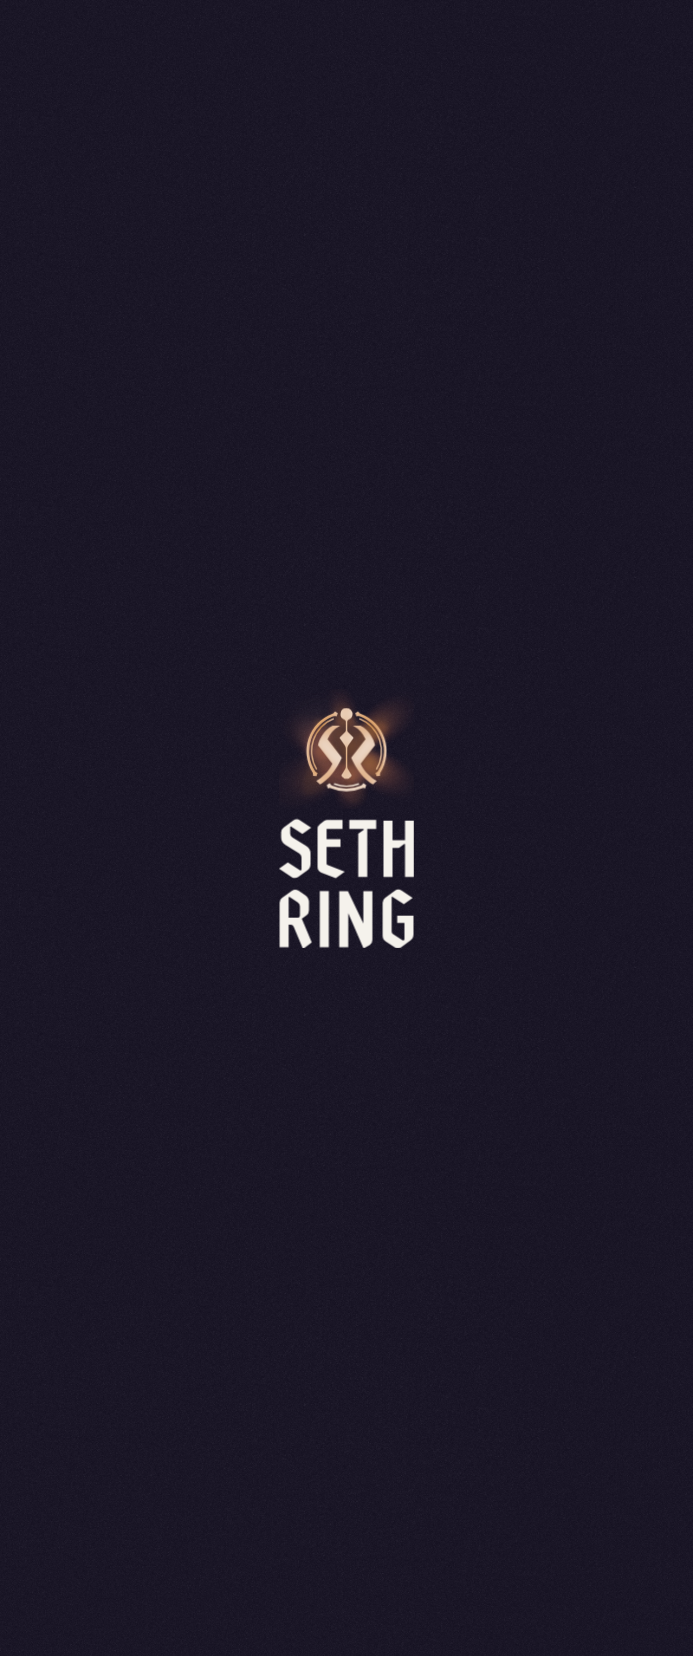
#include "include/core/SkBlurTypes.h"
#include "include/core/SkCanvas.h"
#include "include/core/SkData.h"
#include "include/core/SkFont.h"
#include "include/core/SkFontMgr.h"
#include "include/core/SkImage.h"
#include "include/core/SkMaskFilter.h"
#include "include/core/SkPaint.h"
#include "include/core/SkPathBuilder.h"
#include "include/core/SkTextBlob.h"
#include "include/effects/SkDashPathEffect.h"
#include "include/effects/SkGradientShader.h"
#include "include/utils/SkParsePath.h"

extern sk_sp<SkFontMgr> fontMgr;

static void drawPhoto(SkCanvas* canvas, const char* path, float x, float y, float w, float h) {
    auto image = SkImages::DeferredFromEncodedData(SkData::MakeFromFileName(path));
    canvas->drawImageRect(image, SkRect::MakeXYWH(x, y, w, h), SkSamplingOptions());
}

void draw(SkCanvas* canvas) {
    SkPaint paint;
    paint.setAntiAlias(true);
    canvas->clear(0xFF161124);
    drawPhoto(canvas, "assets/img1.png", 0, 0, 693, 1656);
    drawPhoto(canvas, "assets/img2.png", 279, 689, 135, 120);
    drawPhoto(canvas, "assets/img3.png", 279, 708, 135, 240);
}
